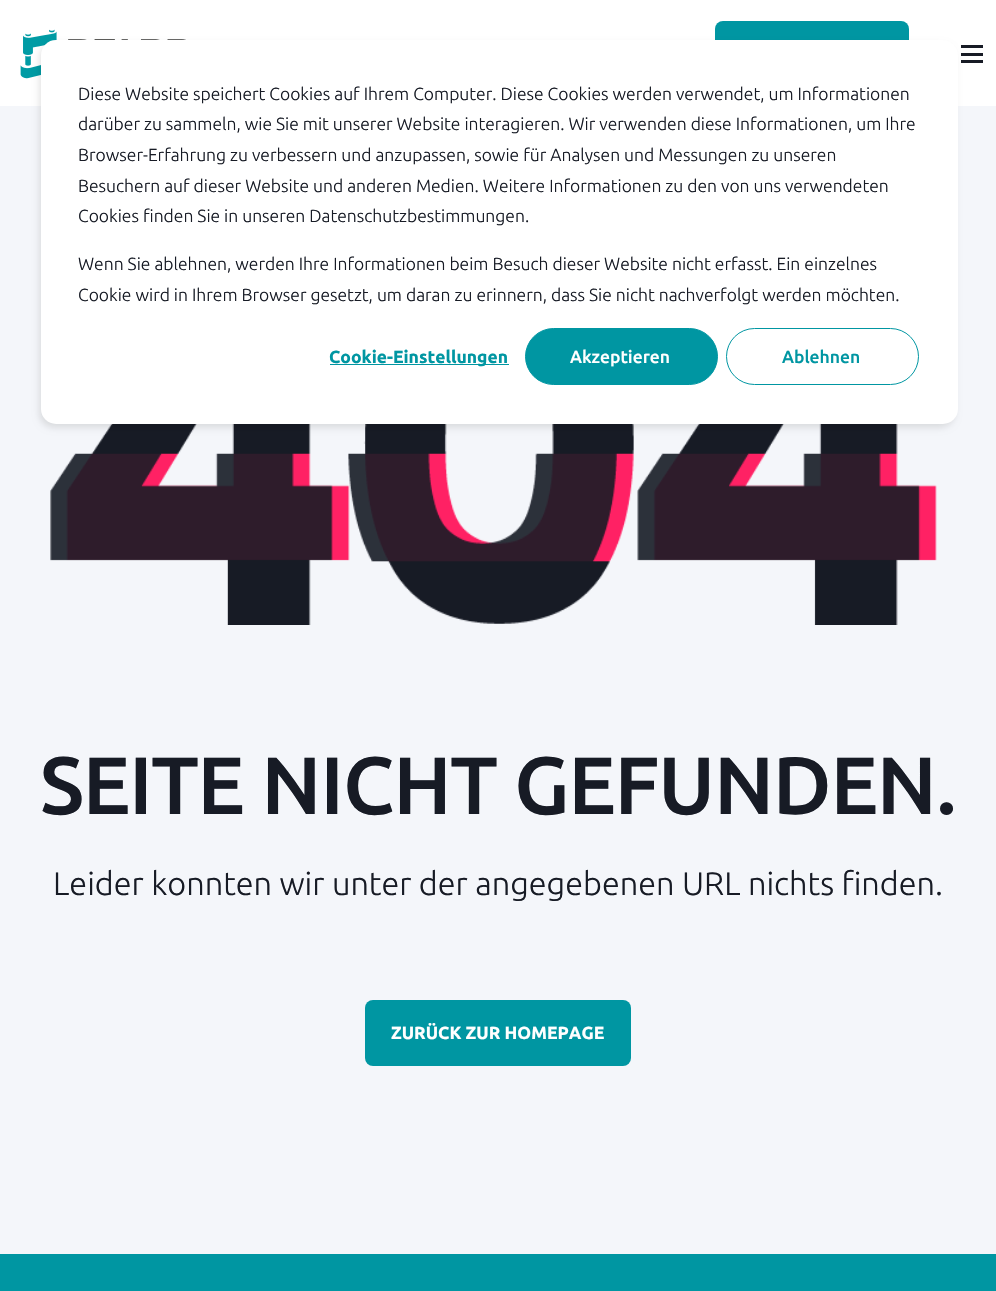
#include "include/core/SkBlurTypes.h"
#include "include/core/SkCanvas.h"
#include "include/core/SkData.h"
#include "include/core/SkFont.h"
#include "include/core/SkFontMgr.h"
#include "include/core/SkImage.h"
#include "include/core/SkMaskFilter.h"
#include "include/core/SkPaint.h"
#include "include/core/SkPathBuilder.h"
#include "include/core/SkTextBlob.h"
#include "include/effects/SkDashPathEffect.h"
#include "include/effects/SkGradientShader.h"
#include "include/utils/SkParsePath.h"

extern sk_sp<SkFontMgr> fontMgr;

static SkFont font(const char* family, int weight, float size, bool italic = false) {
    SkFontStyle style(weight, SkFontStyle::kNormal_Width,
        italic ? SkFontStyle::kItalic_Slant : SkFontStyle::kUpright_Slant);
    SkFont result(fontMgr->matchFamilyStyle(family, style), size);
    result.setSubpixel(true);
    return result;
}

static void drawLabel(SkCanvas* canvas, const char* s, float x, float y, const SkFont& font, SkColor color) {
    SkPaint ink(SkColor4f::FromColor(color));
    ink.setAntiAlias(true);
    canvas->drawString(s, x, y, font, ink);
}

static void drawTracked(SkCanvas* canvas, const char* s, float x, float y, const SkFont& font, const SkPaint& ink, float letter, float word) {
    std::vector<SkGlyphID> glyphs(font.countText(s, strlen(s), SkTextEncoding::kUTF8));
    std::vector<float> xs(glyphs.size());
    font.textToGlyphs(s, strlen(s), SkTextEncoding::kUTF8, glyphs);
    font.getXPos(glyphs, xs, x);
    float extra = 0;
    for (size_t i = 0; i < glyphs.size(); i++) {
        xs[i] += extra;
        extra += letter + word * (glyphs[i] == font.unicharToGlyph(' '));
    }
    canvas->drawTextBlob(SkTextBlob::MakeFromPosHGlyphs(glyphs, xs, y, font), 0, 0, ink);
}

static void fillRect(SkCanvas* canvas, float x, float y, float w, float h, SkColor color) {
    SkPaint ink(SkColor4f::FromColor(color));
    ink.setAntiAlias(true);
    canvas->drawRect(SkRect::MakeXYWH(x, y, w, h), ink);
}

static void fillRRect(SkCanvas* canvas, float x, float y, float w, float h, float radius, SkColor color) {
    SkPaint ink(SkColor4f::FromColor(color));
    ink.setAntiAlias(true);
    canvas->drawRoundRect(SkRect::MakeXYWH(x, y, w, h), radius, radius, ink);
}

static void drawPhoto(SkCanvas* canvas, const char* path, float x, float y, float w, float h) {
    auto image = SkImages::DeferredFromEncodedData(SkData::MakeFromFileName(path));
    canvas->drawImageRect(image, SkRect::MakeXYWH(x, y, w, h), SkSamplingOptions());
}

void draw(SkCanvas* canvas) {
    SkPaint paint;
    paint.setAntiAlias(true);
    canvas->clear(0xFFFFFFFF);
    drawPhoto(canvas, "assets/img1.png", 20, 29, 166, 50);
    fillRRect(canvas, 715, 21, 194, 65, 8, 0xFF0096A2);
    fillRect(canvas, 961, 45, 22, 3, 0xFF171B25);
    fillRect(canvas, 961, 53, 22, 3, 0xFF171B25);
    fillRect(canvas, 961, 60, 22, 3, 0xFF171B25);
    fillRect(canvas, 0, 106, 996, 1148, 0xFFF4F6FA);
    drawPhoto(canvas, "assets/img2.png", 50, 424, 887, 201);
    paint.setColor(0x1A000000);
    paint.setMaskFilter(SkMaskFilter::MakeBlur(kNormal_SkBlurStyle, 3));
    canvas->drawRoundRect(SkRect::MakeXYWH(39, 44, 916, 384), 15, 15, paint);
    paint.setMaskFilter(nullptr);
    fillRRect(canvas, 41, 40, 917, 384, 15, 0xFFFFFFFF);
    SkFont font1 = font("Ubuntu", 300, 17.5f);
    drawLabel(canvas, "Diese Website speichert Cookies auf Ihrem Computer. Diese Cookies werden verwendet, um Informationen", 78, 100, font1, 0xFF171B25);
    drawLabel(canvas, "darüber zu sammeln, wie Sie mit unserer Website interagieren. Wir verwenden diese Informationen, um Ihre", 78, 130, font1, 0xFF171B25);
    drawLabel(canvas, "Browser-Erfahrung zu verbessern und anzupassen, sowie für Analysen und Messungen zu unseren", 78, 161, font1, 0xFF171B25);
    drawLabel(canvas, "Besuchern auf dieser Website und anderen Medien. Weitere Informationen zu den von uns verwendeten", 78, 192, font1, 0xFF171B25);
    drawLabel(canvas, "Cookies finden Sie in unseren Datenschutzbestimmungen.", 78, 222, font1, 0xFF171B25);
    drawLabel(canvas, "Wenn Sie ablehnen, werden Ihre Informationen beim Besuch dieser Website nicht erfasst. Ein einzelnes", 78, 270, font1, 0xFF171B25);
    drawLabel(canvas, "Cookie wird in Ihrem Browser gesetzt, um daran zu erinnern, dass Sie nicht nachverfolgt werden möchten.", 78, 301, font1, 0xFF171B25);
    fillRect(canvas, 330, 364, 179, 1, 0xFF0096A2);
    SkFont font2 = font("Ubuntu", 700, 17.5f);
    drawLabel(canvas, "Cookie-Einstellungen", 329, 363, font2, 0xFF0096A2);
    paint.setColor(0xFF0096A2);
    canvas->drawRoundRect(SkRect::MakeXYWH(525.5f, 328.5f, 192, 56), 28, 28, paint);
    paint.setStroke(true);
    paint.setStrokeWidth(1);
    canvas->drawRoundRect(SkRect::MakeXYWH(525.5f, 328.5f, 192, 56), 28, 28, paint);
    SkFont font3 = font("Ubuntu", 500, 17.5f);
    drawLabel(canvas, "Akzeptieren", 570, 363, font3, 0xFFFFFFFF);
    canvas->drawRoundRect(SkRect::MakeXYWH(726.5f, 328.5f, 192, 56), 28, 28, paint);
    drawLabel(canvas, "Ablehnen", 782, 363, font3, 0xFF0096A2);
    SkFont font4 = font("Ubuntu", 500, 81.25f);
    paint.setStroke(false);
    paint.setColor(0xFF171B25);
    drawTracked(canvas, "SEITE NICHT GEFUNDEN.", 40, 814, font4, paint, -1.25f, 0);
    SkFont font5 = font("Ubuntu", 300, 32.5f);
    drawLabel(canvas, "Leider konnten wir unter der angegebenen URL nichts finden.", 53, 895, font5, 0xFF171B25);
    fillRRect(canvas, 365, 1000, 266, 66, 8, 0xFF0096A2);
    drawLabel(canvas, "ZURÜCK ZUR HOMEPAGE", 391, 1039, font2, 0xFFFFFFFF);
    fillRect(canvas, 0, 1254, 996, 37, 0xFF0096A2);
}
